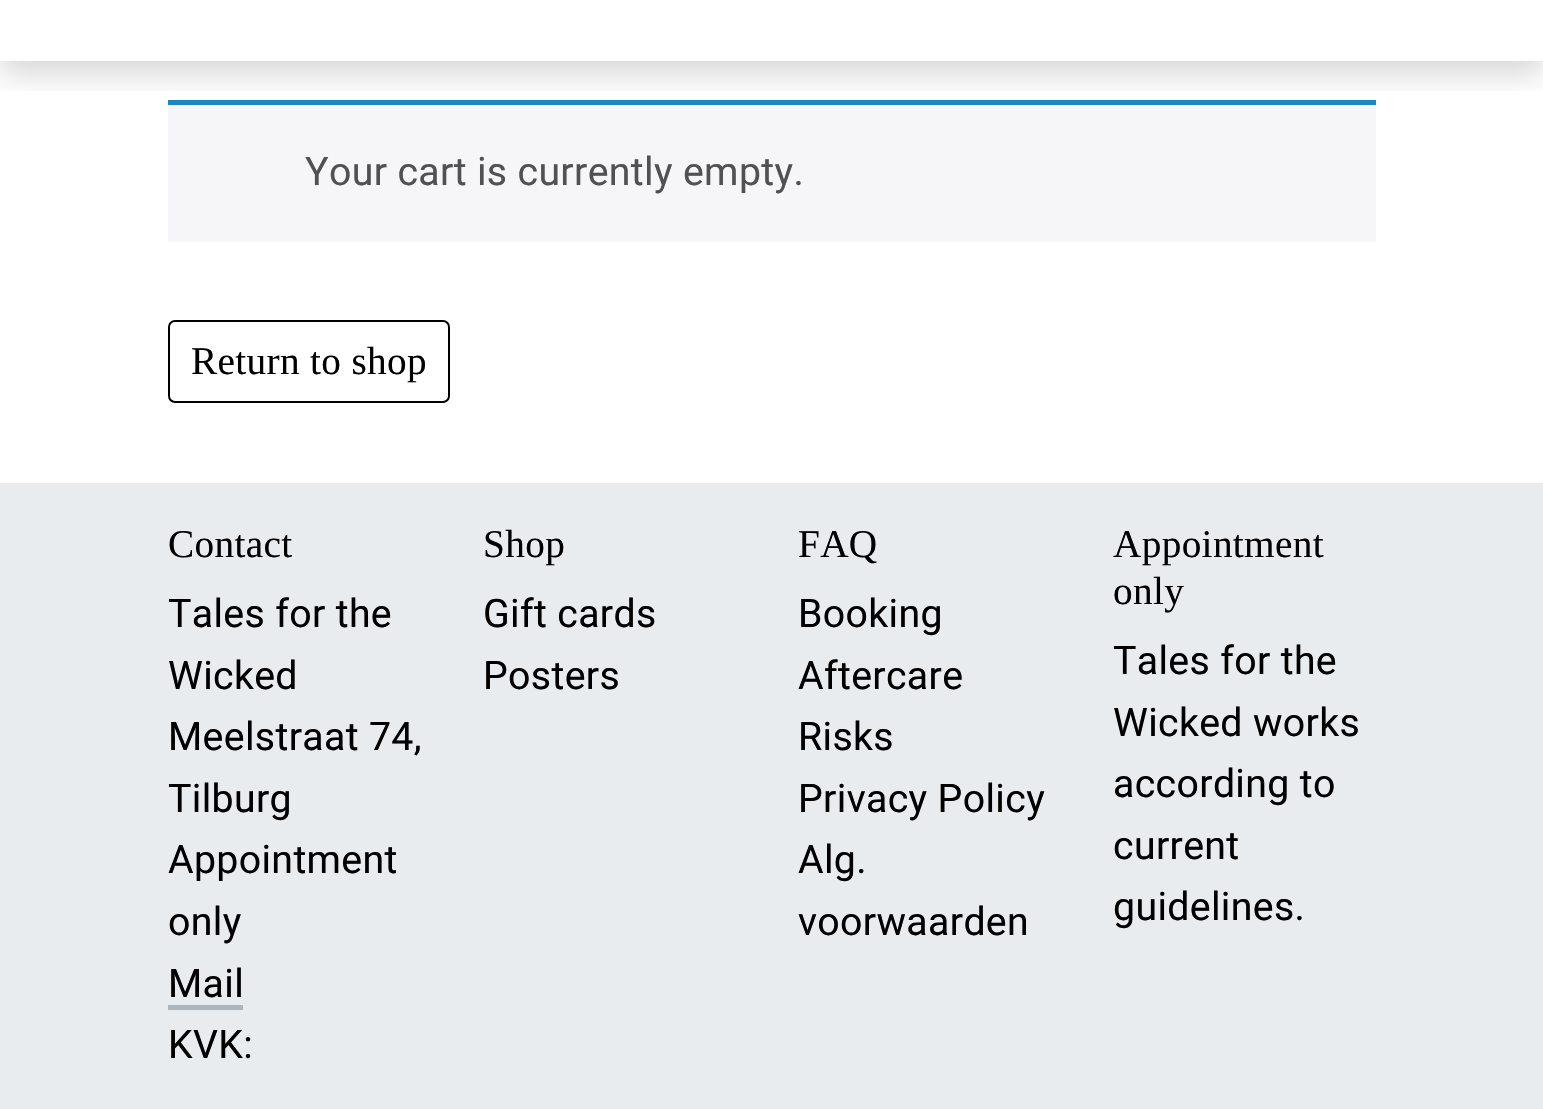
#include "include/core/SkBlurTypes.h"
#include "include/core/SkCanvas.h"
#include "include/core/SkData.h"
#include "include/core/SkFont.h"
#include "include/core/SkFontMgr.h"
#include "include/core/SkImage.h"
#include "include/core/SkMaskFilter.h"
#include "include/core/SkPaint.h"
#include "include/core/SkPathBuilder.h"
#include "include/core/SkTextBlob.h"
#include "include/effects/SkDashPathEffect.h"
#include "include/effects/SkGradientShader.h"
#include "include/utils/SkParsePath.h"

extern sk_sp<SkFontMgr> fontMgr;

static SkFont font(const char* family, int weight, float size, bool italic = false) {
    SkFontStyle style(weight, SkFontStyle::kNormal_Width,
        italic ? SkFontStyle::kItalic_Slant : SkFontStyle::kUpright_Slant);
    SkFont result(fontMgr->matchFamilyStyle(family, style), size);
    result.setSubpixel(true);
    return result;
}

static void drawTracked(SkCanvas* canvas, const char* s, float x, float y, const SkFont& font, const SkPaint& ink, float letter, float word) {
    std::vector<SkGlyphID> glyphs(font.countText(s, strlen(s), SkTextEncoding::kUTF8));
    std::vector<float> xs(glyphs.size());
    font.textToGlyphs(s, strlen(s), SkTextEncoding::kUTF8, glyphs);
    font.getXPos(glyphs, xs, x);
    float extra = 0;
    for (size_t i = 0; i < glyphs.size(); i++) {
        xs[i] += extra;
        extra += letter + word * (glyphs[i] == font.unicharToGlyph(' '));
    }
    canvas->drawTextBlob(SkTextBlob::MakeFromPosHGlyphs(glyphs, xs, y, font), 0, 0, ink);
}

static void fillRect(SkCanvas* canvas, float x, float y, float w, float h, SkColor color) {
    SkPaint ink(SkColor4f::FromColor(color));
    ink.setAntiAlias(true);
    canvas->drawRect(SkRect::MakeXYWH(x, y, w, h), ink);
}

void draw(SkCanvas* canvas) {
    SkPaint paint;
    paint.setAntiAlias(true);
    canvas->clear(0xFFFFFFFF);
    canvas->save();
    canvas->clipRect(SkRect::MakeXYWH(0, 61, 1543, 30));
    paint.setColor(0x26000000);
    paint.setMaskFilter(SkMaskFilter::MakeBlur(kNormal_SkBlurStyle, 14));
    canvas->drawRect(SkRect::MakeXYWH(0, -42, 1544, 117), paint);
    paint.setMaskFilter(nullptr);
    canvas->restore();
    fillRect(canvas, 168, 105, 1208, 137, 0xFFF6F5F8);
    fillRect(canvas, 168, 100, 1208, 5, 0xFF1E85BE);
    SkFont font1 = font("Roboto", 400, 39.25f);
    paint.setColor(0xFF515151);
    drawTracked(canvas, "Your cart is currently empty.", 305, 185, font1, paint, 0.35f, 0);
    paint.setStroke(true);
    paint.setStrokeWidth(2);
    paint.setColor(0xFF000000);
    canvas->drawRoundRect(SkRect::MakeXYWH(169, 321, 280, 81), 6, 6, paint);
    SkFont font2 = font("Liberation Serif", 400, 39.25f);
    paint.setStroke(false);
    drawTracked(canvas, "Return to shop", 191, 374, font2, paint, 0.35f, 0);
    fillRect(canvas, 0, 483, 1543, 626, 0xFFE9ECEF);
    drawTracked(canvas, "Contact", 168, 557, font2, paint, 0.35f, 0);
    drawTracked(canvas, "Tales for the", 168, 627, font1, paint, 0.35f, 0);
    drawTracked(canvas, "Wicked", 168, 689, font1, paint, 0.35f, 0);
    drawTracked(canvas, "Meelstraat 74,", 168, 750, font1, paint, 0.35f, 0);
    drawTracked(canvas, "Tilburg", 168, 812, font1, paint, 0.35f, 0);
    drawTracked(canvas, "Appointment", 168, 873, font1, paint, 0.35f, 0);
    drawTracked(canvas, "only", 168, 935, font1, paint, 0.35f, 0);
    drawTracked(canvas, "Mail", 168, 997, font1, paint, 0.35f, 0);
    fillRect(canvas, 168, 1005, 75, 5, 0xFFADB5BD);
    drawTracked(canvas, "KVK:", 168, 1058, font1, paint, 0.35f, 0);
    drawTracked(canvas, "Shop", 483, 557, font2, paint, 0.35f, 0);
    drawTracked(canvas, "Gift cards", 483, 627, font1, paint, 0.35f, 0);
    drawTracked(canvas, "Posters", 483, 689, font1, paint, 0.35f, 0);
    drawTracked(canvas, "FAQ", 798, 557, font2, paint, 0.35f, 0);
    drawTracked(canvas, "Booking", 798, 627, font1, paint, 0.35f, 0);
    drawTracked(canvas, "Aftercare", 798, 689, font1, paint, 0.35f, 0);
    drawTracked(canvas, "Risks", 798, 750, font1, paint, 0.35f, 0);
    drawTracked(canvas, "Privacy Policy", 798, 812, font1, paint, 0.35f, 0);
    drawTracked(canvas, "Alg.", 798, 873, font1, paint, 0.35f, 0);
    drawTracked(canvas, "voorwaarden", 798, 935, font1, paint, 0.35f, 0);
    drawTracked(canvas, "Appointment", 1113, 557, font2, paint, 0.35f, 0);
    drawTracked(canvas, "only", 1113, 604, font2, paint, 0.35f, 0);
    drawTracked(canvas, "Tales for the", 1113, 674, font1, paint, 0.35f, 0);
    drawTracked(canvas, "Wicked works", 1113, 736, font1, paint, 0.35f, 0);
    drawTracked(canvas, "according to", 1113, 797, font1, paint, 0.35f, 0);
    drawTracked(canvas, "current", 1113, 859, font1, paint, 0.35f, 0);
    drawTracked(canvas, "guidelines.", 1113, 920, font1, paint, 0.35f, 0);
}
